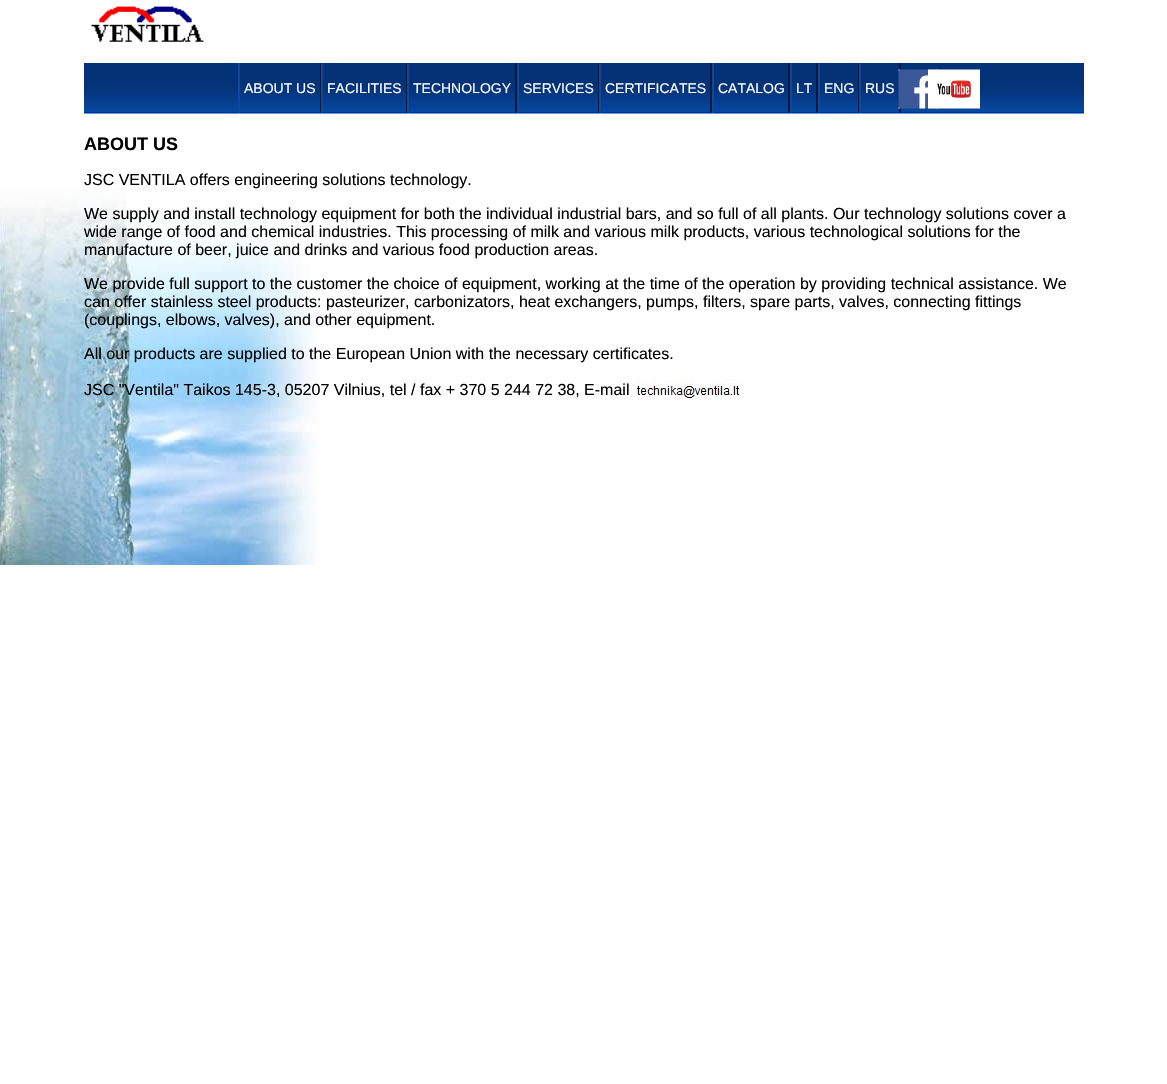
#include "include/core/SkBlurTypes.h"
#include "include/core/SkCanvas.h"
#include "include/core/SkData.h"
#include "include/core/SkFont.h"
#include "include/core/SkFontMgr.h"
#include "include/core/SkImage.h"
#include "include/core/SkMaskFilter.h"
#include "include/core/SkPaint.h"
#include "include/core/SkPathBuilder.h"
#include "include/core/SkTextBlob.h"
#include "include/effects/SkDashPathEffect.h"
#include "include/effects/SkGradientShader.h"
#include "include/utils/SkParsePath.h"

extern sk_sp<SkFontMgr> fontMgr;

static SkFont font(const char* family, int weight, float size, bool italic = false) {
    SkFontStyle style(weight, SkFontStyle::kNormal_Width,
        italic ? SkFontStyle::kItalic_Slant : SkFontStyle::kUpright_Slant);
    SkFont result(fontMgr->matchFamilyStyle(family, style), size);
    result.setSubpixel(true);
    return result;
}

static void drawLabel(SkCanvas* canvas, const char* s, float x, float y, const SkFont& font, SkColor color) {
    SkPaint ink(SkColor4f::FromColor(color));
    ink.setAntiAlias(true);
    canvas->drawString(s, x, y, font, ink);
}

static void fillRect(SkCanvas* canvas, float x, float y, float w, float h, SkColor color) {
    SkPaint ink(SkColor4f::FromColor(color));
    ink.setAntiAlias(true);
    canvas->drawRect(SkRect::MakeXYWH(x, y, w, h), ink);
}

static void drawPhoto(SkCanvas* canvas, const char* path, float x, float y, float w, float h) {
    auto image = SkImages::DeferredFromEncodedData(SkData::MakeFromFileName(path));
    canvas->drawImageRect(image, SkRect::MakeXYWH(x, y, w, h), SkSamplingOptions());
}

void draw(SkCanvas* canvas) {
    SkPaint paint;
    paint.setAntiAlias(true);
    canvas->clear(0xFFFFFFFF);
    drawPhoto(canvas, "assets/img1.png", 0, 184, 320, 381);
    fillRect(canvas, 84, 113, 1000, 1, 0xFF599BFF);
    drawPhoto(canvas, "assets/img2.png", 91, 6, 113, 36);
    drawPhoto(canvas, "assets/img3.png", 84, 63, 1000, 50);
    fillRect(canvas, 320, 63, 1, 50, 0xFF02193B);
    fillRect(canvas, 238, 63, 2, 50, 0xFF0E489C);
    SkFont font1 = font("Liberation Sans", 400, 14);
    drawLabel(canvas, "ABOUT US", 244, 93, font1, 0xFFFFFFFF);
    fillRect(canvas, 406, 63, 1, 50, 0xFF02193B);
    fillRect(canvas, 321, 63, 2, 50, 0xFF0E489C);
    drawLabel(canvas, "FACILITIES", 327, 93, font1, 0xFFFFFFFF);
    fillRect(canvas, 515, 63, 2, 50, 0xFF02193B);
    fillRect(canvas, 407, 63, 2, 50, 0xFF0E489C);
    drawLabel(canvas, "TECHNOLOGY", 413, 93, font1, 0xFFFFFFFF);
    fillRect(canvas, 598, 63, 1, 50, 0xFF02193B);
    fillRect(canvas, 517, 63, 2, 50, 0xFF0E489C);
    drawLabel(canvas, "SERVICES", 523, 93, font1, 0xFFFFFFFF);
    fillRect(canvas, 710, 63, 2, 50, 0xFF02193B);
    fillRect(canvas, 599, 63, 2, 50, 0xFF0E489C);
    drawLabel(canvas, "CERTIFICATES", 605, 93, font1, 0xFFFFFFFF);
    fillRect(canvas, 788, 63, 2, 50, 0xFF02193B);
    fillRect(canvas, 712, 63, 2, 50, 0xFF0E489C);
    drawLabel(canvas, "CATALOG", 718, 93, font1, 0xFFFFFFFF);
    fillRect(canvas, 816, 63, 2, 50, 0xFF02193B);
    fillRect(canvas, 790, 63, 2, 50, 0xFF0E489C);
    drawLabel(canvas, "LT", 796, 93, font1, 0xFFFFFFFF);
    fillRect(canvas, 858, 63, 1, 50, 0xFF02193B);
    fillRect(canvas, 818, 63, 2, 50, 0xFF0E489C);
    drawLabel(canvas, "ENG", 824, 93, font1, 0xFFFFFFFF);
    fillRect(canvas, 899, 63, 2, 50, 0xFF02193B);
    fillRect(canvas, 859, 63, 2, 50, 0xFF0E489C);
    drawLabel(canvas, "RUS", 865, 93, font1, 0xFFFFFFFF);
    drawPhoto(canvas, "assets/img4.png", 898, 69, 40, 40);
    drawPhoto(canvas, "assets/img5.png", 928, 69, 52, 40);
    SkFont font2 = font("Liberation Sans", 700, 18);
    drawLabel(canvas, "ABOUT US", 84, 150, font2, 0xFF000000);
    SkFont font3 = font("Liberation Sans", 400, 16);
    drawLabel(canvas, "JSC VENTILA offers engineering solutions technology.", 84, 185, font3, 0xFF000000);
    drawLabel(canvas, "We supply and install technology equipment for both the individual industrial bars, and so full of all plants. Our technology solutions cover a", 84, 219, font3, 0xFF000000);
    drawLabel(canvas, "wide range of food and chemical industries. This processing of milk and various milk products, various technological solutions for the", 84, 237, font3, 0xFF000000);
    drawLabel(canvas, "manufacture of beer, juice and drinks and various food production areas.", 84, 255, font3, 0xFF000000);
    drawLabel(canvas, "We provide full support to the customer the choice of equipment, working at the time of the operation by providing technical assistance. We", 84, 289, font3, 0xFF000000);
    drawLabel(canvas, "can offer stainless steel products: pasteurizer, carbonizators, heat exchangers, pumps, filters, spare parts, valves, connecting fittings", 84, 307, font3, 0xFF000000);
    drawLabel(canvas, "(couplings, elbows, valves), and other equipment.", 84, 325, font3, 0xFF000000);
    drawLabel(canvas, "All our products are supplied to the European Union with the necessary certificates.", 84, 359, font3, 0xFF000000);
    drawLabel(canvas, "JSC \"Ventila\" Taikos 145-3, 05207 Vilnius, tel / fax + 370 5 244 72 38, E-mail", 84, 395, font3, 0xFF000000);
    drawPhoto(canvas, "assets/img6.png", 633, 379, 112, 20);
}
